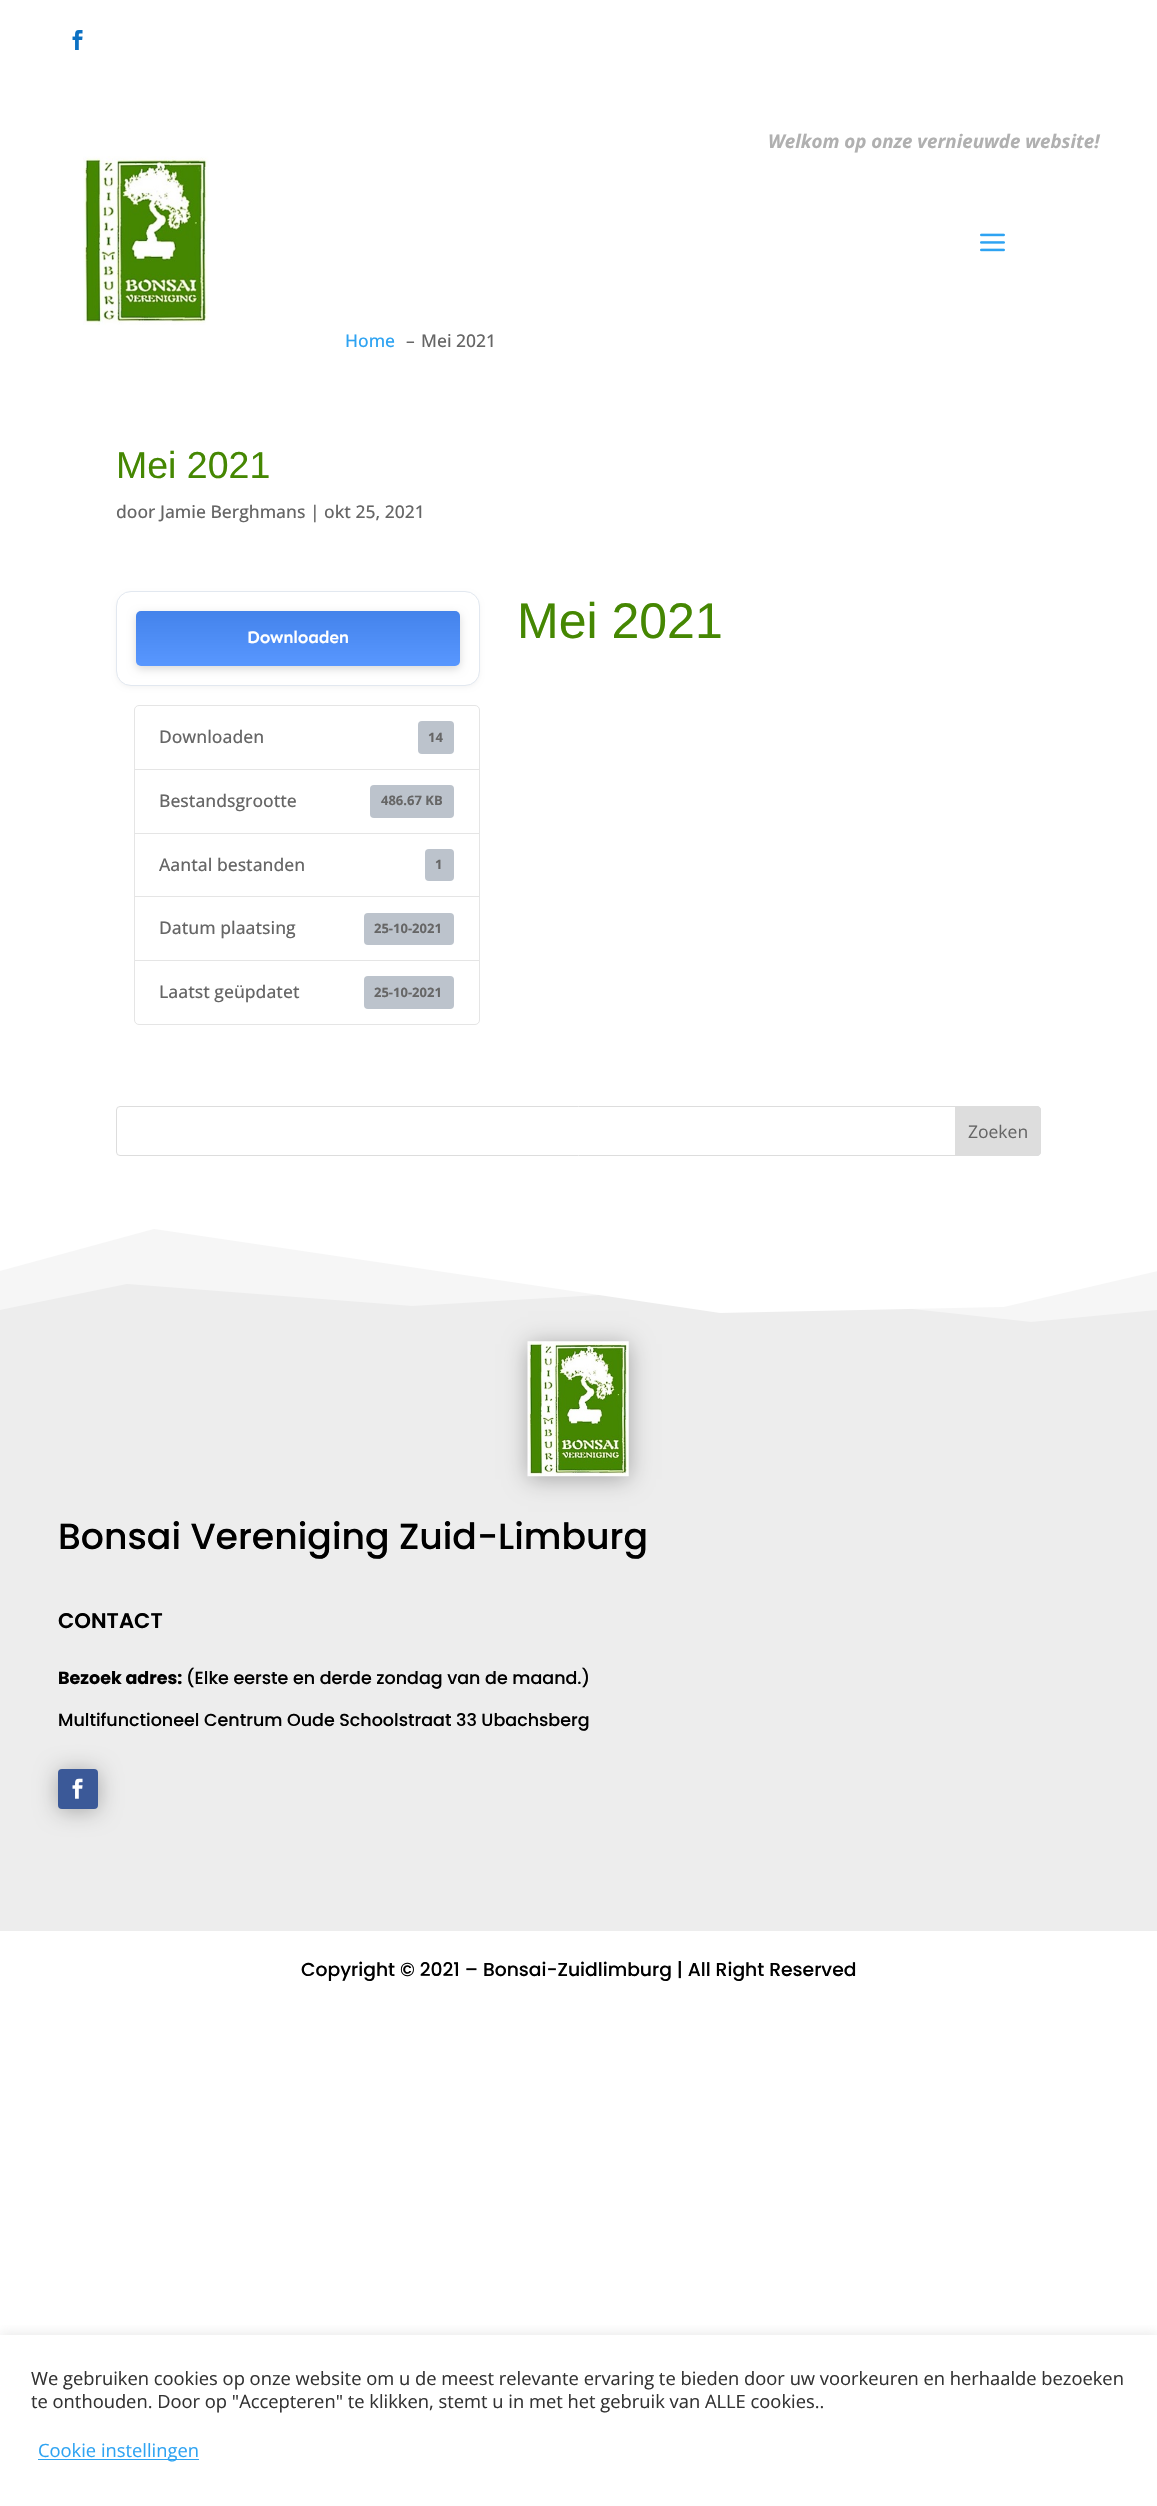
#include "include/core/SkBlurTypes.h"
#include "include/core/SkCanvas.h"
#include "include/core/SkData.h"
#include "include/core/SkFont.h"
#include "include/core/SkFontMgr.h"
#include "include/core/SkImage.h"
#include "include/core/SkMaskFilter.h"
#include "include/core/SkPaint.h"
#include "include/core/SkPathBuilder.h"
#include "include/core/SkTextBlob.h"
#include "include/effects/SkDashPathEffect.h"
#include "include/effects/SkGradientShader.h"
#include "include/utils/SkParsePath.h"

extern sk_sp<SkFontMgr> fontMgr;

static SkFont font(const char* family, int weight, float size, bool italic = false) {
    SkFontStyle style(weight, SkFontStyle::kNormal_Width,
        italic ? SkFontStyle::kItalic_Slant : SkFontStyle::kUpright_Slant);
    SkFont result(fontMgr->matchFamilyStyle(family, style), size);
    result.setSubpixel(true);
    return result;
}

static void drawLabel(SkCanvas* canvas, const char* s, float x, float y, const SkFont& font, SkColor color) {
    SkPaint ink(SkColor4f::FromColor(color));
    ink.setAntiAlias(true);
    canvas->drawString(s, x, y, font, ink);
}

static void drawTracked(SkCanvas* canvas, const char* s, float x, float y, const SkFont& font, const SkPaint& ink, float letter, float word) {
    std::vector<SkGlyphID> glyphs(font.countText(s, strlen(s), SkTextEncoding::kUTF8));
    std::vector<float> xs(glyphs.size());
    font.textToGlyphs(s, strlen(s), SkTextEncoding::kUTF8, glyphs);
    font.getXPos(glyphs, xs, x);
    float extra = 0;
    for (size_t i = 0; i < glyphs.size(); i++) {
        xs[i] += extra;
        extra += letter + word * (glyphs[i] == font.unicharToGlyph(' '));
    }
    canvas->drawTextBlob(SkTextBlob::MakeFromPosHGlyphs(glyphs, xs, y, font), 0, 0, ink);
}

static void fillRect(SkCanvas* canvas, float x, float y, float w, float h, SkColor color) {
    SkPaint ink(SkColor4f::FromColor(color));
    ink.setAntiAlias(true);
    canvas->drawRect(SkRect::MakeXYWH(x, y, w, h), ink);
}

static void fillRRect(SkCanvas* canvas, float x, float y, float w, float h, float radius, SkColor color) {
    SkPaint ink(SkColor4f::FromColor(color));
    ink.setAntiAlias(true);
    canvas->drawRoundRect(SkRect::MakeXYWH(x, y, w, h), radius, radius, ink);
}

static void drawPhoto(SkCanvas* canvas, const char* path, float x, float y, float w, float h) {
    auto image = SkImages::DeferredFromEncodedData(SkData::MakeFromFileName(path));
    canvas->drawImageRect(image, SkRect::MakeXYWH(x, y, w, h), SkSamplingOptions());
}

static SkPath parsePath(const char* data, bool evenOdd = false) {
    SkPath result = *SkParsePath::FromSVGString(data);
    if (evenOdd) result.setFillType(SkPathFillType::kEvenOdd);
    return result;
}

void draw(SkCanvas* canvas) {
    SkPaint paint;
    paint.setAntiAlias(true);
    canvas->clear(0xFFFFFFFF);
    drawPhoto(canvas, "assets/img1.png", 72, 30, 11, 20);
    SkFont font1 = font("Open Sans", 700, 18.75f, true);
    drawLabel(canvas, "Welkom op onze vernieuwde website!", 768, 148, font1, 0xFFB0B0B0);
    drawPhoto(canvas, "assets/img2.png", 83, 156, 126, 169);
    drawPhoto(canvas, "assets/img3.png", 980, 233, 25, 19);
    SkFont font2 = font("Open Sans", 500, 17.5f);
    drawLabel(canvas, "Home", 345, 347, font2, 0xFF2EA3F2);
    drawLabel(canvas, "–", 406, 347, font2, 0xFF666666);
    drawLabel(canvas, "Mei 2021", 421, 347, font2, 0xFF666666);
    SkFont font3 = font("Liberation Sans", 400, 37.5f);
    drawLabel(canvas, "Mei 2021", 116, 478, font3, 0xFF458702);
    drawLabel(canvas, "door Jamie Berghmans | okt 25, 2021", 116, 518, font2, 0xFF666666);
    SkFont font4 = font("Liberation Sans", 400, 50);
    drawLabel(canvas, "Mei 2021", 517, 638, font4, 0xFF458702);
    paint.setColor(0x0A000000);
    paint.setMaskFilter(SkMaskFilter::MakeBlur(kNormal_SkBlurStyle, 2));
    canvas->drawRoundRect(SkRect::MakeXYWH(116, 593, 364, 95), 15, 15, paint);
    paint.setMaskFilter(nullptr);
    paint.setColor(0xFFFFFFFF);
    canvas->drawRoundRect(SkRect::MakeXYWH(116.5f, 591.5f, 363, 94), 14.5f, 14.5f, paint);
    paint.setStroke(true);
    paint.setStrokeWidth(1);
    paint.setColor(0xFFE2E8F0);
    canvas->drawRoundRect(SkRect::MakeXYWH(116.5f, 591.5f, 363, 94), 14.5f, 14.5f, paint);
    paint.setStroke(false);
    paint.setColor(0x26000000);
    paint.setMaskFilter(SkMaskFilter::MakeBlur(kNormal_SkBlurStyle, 4));
    canvas->drawRoundRect(SkRect::MakeXYWH(136, 614, 324, 55), 5, 5, paint);
    paint.setMaskFilter(nullptr);
    fillRRect(canvas, 136, 611, 324, 55, 5, 0xFF4A8EFF);
    {
        const SkColor colors[] = {0x14000000, 0x14FFFFFF};
        const float stops[] = {0, 1};
        const SkPoint ends[] = {{298, 611}, {298, 666}};
        paint.setShader(SkGradientShader::MakeLinear(ends, colors, stops, 2, SkTileMode::kClamp));
        paint.setAlpha(255);
    }
    canvas->drawRoundRect(SkRect::MakeXYWH(136, 611, 324, 55), 5, 5, paint);
    SkFont font5 = font("Sen", 600, 17.5f);
    paint.setShader(nullptr);
    paint.setColor(0xFFFFFFFF);
    drawTracked(canvas, "Downloaden", 247, 643, font5, paint, -0.25f, 0);
    paint.setStroke(true);
    paint.setColor(0xFFE5E5E5);
    canvas->drawPath(parsePath("M139 705.5H475C477.5 705.5 479.5 707.5 479.5 710V769.5H134.5V710C134.5 707.5 136.5 705.5 139 705.5Z"), paint);
    drawLabel(canvas, "Downloaden", 159, 743, font2, 0xFF666666);
    fillRRect(canvas, 418, 721, 36, 33, 4, 0xFFBCC3CC);
    SkFont font6 = font("Open Sans", 700, 13);
    drawLabel(canvas, "14", 428, 742, font6, 0xFF666666);
    canvas->drawRect(SkRect::MakeXYWH(134.5f, 769.5f, 345, 64), paint);
    drawLabel(canvas, "Bestandsgrootte", 159, 807, font2, 0xFF666666);
    fillRRect(canvas, 370, 785, 84, 33, 4, 0xFFBCC3CC);
    drawLabel(canvas, "486.67 KB", 381, 805, font6, 0xFF666666);
    canvas->drawRect(SkRect::MakeXYWH(134.5f, 833.5f, 345, 64), paint);
    drawLabel(canvas, "Aantal bestanden", 159, 871, font2, 0xFF666666);
    fillRRect(canvas, 425, 849, 29, 32, 4, 0xFFBCC3CC);
    drawLabel(canvas, "1", 435, 869, font6, 0xFF666666);
    fillRect(canvas, 135, 897, 344, 1, 0xFFFFFFFF);
    canvas->drawRect(SkRect::MakeXYWH(134.5f, 896.5f, 345, 64), paint);
    drawLabel(canvas, "Datum plaatsing", 159, 934, font2, 0xFF666666);
    fillRRect(canvas, 364, 913, 90, 32, 4, 0xFFBCC3CC);
    drawLabel(canvas, "25-10-2021", 374, 933, font6, 0xFF666666);
    paint.setStroke(false);
    paint.setColor(0xFFFFFFFF);
    canvas->drawPath(parsePath("M134.5 960.5H479.5V1020C479.5 1022.5 477.5 1024.5 475 1024.5H139C136.5 1024.5 134.5 1022.5 134.5 1020Z"), paint);
    paint.setStroke(true);
    paint.setColor(0xFFE5E5E5);
    canvas->drawPath(parsePath("M134.5 960.5H479.5V1020C479.5 1022.5 477.5 1024.5 475 1024.5H139C136.5 1024.5 134.5 1022.5 134.5 1020Z"), paint);
    drawLabel(canvas, "Laatst geüpdatet", 159, 998, font2, 0xFF666666);
    fillRRect(canvas, 364, 976, 90, 33, 4, 0xFFBCC3CC);
    drawLabel(canvas, "25-10-2021", 374, 997, font6, 0xFF666666);
    paint.setColor(0xFFDDDDDD);
    canvas->drawRoundRect(SkRect::MakeXYWH(116.5f, 1106.5f, 924, 49), 3.5f, 3.5f, paint);
    paint.setStroke(false);
    canvas->drawPath(parsePath("M955.5 1106.5H1037C1039 1106.5 1040.5 1108 1040.5 1110V1152C1040.5 1154 1039 1155.5 1037 1155.5H955.5Z"), paint);
    paint.setStroke(true);
    canvas->drawPath(parsePath("M955.5 1106.5H1037C1039 1106.5 1040.5 1108 1040.5 1110V1152C1040.5 1154 1039 1155.5 1037 1155.5H955.5Z"), paint);
    SkFont font7 = font("Open Sans", 400, 17.5f);
    drawLabel(canvas, "Zoeken", 968, 1138, font7, 0xFF666666);
    fillRect(canvas, 0, 1284, 1157, 647, 0xFFEDEDED);
    paint.setStroke(false);
    paint.setColor(0xFFF6F6F6);
    canvas->drawPath(parsePath("M0 1310L127 1284L412 1306L720 1288L1031 1322L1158 1310V1229H0Z"), paint);
    paint.setColor(0xFFFFFFFF);
    canvas->drawPath(parsePath("M0 1229V1271L154 1229L720 1313L1004 1307L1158 1271V1229Z"), paint);
    paint.setColor(0x4D000000);
    paint.setMaskFilter(SkMaskFilter::MakeBlur(kNormal_SkBlurStyle, 11));
    canvas->drawRect(SkRect::MakeXYWH(528, 1344, 101, 135), paint);
    paint.setMaskFilter(nullptr);
    drawPhoto(canvas, "assets/img4.png", 527, 1341, 102, 136);
    SkFont font8 = font("Poppins", 500, 36.25f);
    drawLabel(canvas, "Bonsai Vereniging Zuid-Limburg", 58, 1549, font8, 0xFF000000);
    SkFont font9 = font("Poppins", 600, 21.25f);
    drawLabel(canvas, "CONTACT", 58, 1628, font9, 0xFF000000);
    SkFont font10 = font("Poppins", 700, 17.5f);
    drawLabel(canvas, "Bezoek adres:", 58, 1684, font10, 0xFF000000);
    SkFont font11 = font("Poppins", 500, 17.5f);
    drawLabel(canvas, "(Elke eerste en derde zondag van de maand.)", 186, 1684, font11, 0xFF000000);
    drawLabel(canvas, "Multifunctioneel Centrum Oude Schoolstraat 33 Ubachsberg", 58, 1726, font11, 0xFF000000);
    paint.setMaskFilter(SkMaskFilter::MakeBlur(kNormal_SkBlurStyle, 11));
    canvas->drawRoundRect(SkRect::MakeXYWH(58, 1771, 40, 40), 4, 4, paint);
    paint.setMaskFilter(nullptr);
    fillRRect(canvas, 58, 1769, 40, 40, 4, 0xFF3B5998);
    drawPhoto(canvas, "assets/img5.png", 72, 1778, 11, 21);
    SkFont font12 = font("Poppins", 500, 18.75f);
    drawLabel(canvas, "Copyright © 2021 – Bonsai-Zuidlimburg | All Right Reserved", 301, 1976, font12, 0xFF000000);
    canvas->save();
    canvas->clipRect(SkRect::MakeXYWH(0, 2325, 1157, 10));
    paint.setColor(0x4DACABAB);
    paint.setMaskFilter(SkMaskFilter::MakeBlur(kNormal_SkBlurStyle, 6));
    canvas->drawRect(SkRect::MakeXYWH(0, 2334, 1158, 171), paint);
    paint.setMaskFilter(nullptr);
    canvas->restore();
    SkFont font13 = font("Open Sans", 400, 18.33f);
    drawLabel(canvas, "We gebruiken cookies op onze website om u de meest relevante ervaring te bieden door uw voorkeuren en herhaalde bezoeken", 31, 2385, font13, 0xFF333333);
    drawLabel(canvas, "te onthouden. Door op \"Accepteren\" te klikken, stemt u in met het gebruik van ALLE cookies..", 31, 2408, font13, 0xFF333333);
    fillRect(canvas, 38, 2459, 161, 1, 0xFF2EA3F2);
    drawLabel(canvas, "Cookie instellingen", 38, 2457, font13, 0xFF2EA3F2);
}
